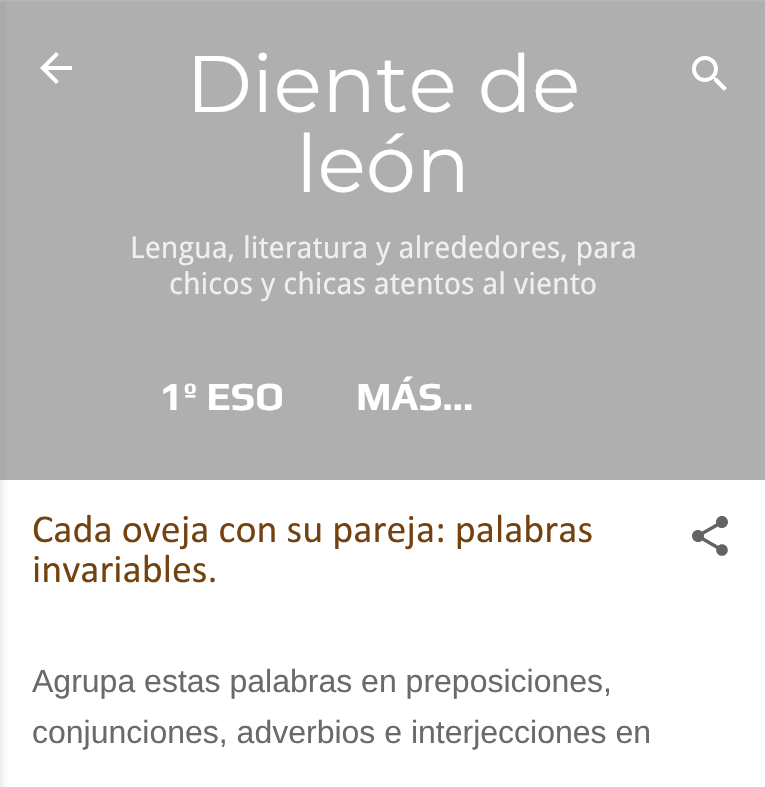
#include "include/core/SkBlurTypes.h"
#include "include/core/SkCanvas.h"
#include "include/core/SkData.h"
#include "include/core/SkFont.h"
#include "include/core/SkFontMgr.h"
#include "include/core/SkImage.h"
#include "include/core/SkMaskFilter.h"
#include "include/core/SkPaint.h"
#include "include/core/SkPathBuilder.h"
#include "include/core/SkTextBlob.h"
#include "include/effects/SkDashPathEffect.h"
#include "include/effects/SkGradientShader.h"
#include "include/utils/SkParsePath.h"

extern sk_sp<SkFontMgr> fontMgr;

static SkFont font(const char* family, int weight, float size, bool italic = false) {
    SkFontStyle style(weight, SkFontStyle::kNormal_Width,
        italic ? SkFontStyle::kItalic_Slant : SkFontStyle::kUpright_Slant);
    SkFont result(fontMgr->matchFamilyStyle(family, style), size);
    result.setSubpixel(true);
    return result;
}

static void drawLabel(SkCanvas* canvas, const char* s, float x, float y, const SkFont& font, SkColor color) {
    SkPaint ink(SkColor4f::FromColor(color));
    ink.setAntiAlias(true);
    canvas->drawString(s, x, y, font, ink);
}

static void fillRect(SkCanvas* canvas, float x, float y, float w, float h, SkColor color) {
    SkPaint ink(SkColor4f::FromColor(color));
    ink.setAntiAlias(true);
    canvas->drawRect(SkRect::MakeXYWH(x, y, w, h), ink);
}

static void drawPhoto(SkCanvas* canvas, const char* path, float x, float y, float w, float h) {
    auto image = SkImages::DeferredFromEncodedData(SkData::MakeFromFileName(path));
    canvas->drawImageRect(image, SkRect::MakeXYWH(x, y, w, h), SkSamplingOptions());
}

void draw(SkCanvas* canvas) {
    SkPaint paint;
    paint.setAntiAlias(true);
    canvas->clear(0xFFFFFFFF);
    paint.setColor(0xFFAFAFAF);
    paint.setMaskFilter(SkMaskFilter::MakeBlur(kNormal_SkBlurStyle, 2));
    canvas->drawRect(SkRect::MakeXYWH(-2, -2, 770, 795), paint);
    paint.setMaskFilter(nullptr);
    fillRect(canvas, 0, 480, 765, 307, 0xFFFFFFFF);
    paint.setColor(0x1A000000);
    paint.setMaskFilter(SkMaskFilter::MakeBlur(kNormal_SkBlurStyle, 3));
    canvas->drawRect(SkRect::MakeXYWH(-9, 2, 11, 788), paint);
    paint.setMaskFilter(nullptr);
    drawPhoto(canvas, "assets/img1.png", 40, 52, 32, 32);
    SkFont font1 = font("Montserrat", 100, 80);
    drawLabel(canvas, "Diente de", 186, 112, font1, 0xFFFFFFFF);
    drawLabel(canvas, "león", 296, 192, font1, 0xFFFFFFFF);
    SkFont font2 = font("Droid Sans", 400, 30);
    drawLabel(canvas, "Lengua, literatura y alrededores, para", 130, 258, font2, 0xFFEFEFEF);
    drawLabel(canvas, "chicos y chicas atentos al viento", 169, 294, font2, 0xFFEFEFEF);
    SkFont font3 = font("Play", 700, 40);
    drawLabel(canvas, "1º ESO", 160, 410, font3, 0xFFFFFFFF);
    drawLabel(canvas, "MÁS…", 356, 410, font3, 0xFFFFFFFF);
    drawPhoto(canvas, "assets/img2.png", 692, 56, 35, 35);
    SkFont font4 = font("Calibri", 400, 40);
    drawLabel(canvas, "Cada oveja con su pareja: palabras", 32, 542, font4, 0xFF73420E);
    drawLabel(canvas, "invariables.", 32, 582, font4, 0xFF73420E);
    drawPhoto(canvas, "assets/img3.png", 692, 516, 36, 40);
    SkFont font5 = font("Liberation Sans", 400, 32);
    drawLabel(canvas, "Agrupa estas palabras en preposiciones,", 32, 692, font5, 0xFF6A6A6A);
    drawLabel(canvas, "conjunciones, adverbios e interjecciones en", 32, 743, font5, 0xFF6A6A6A);
}
